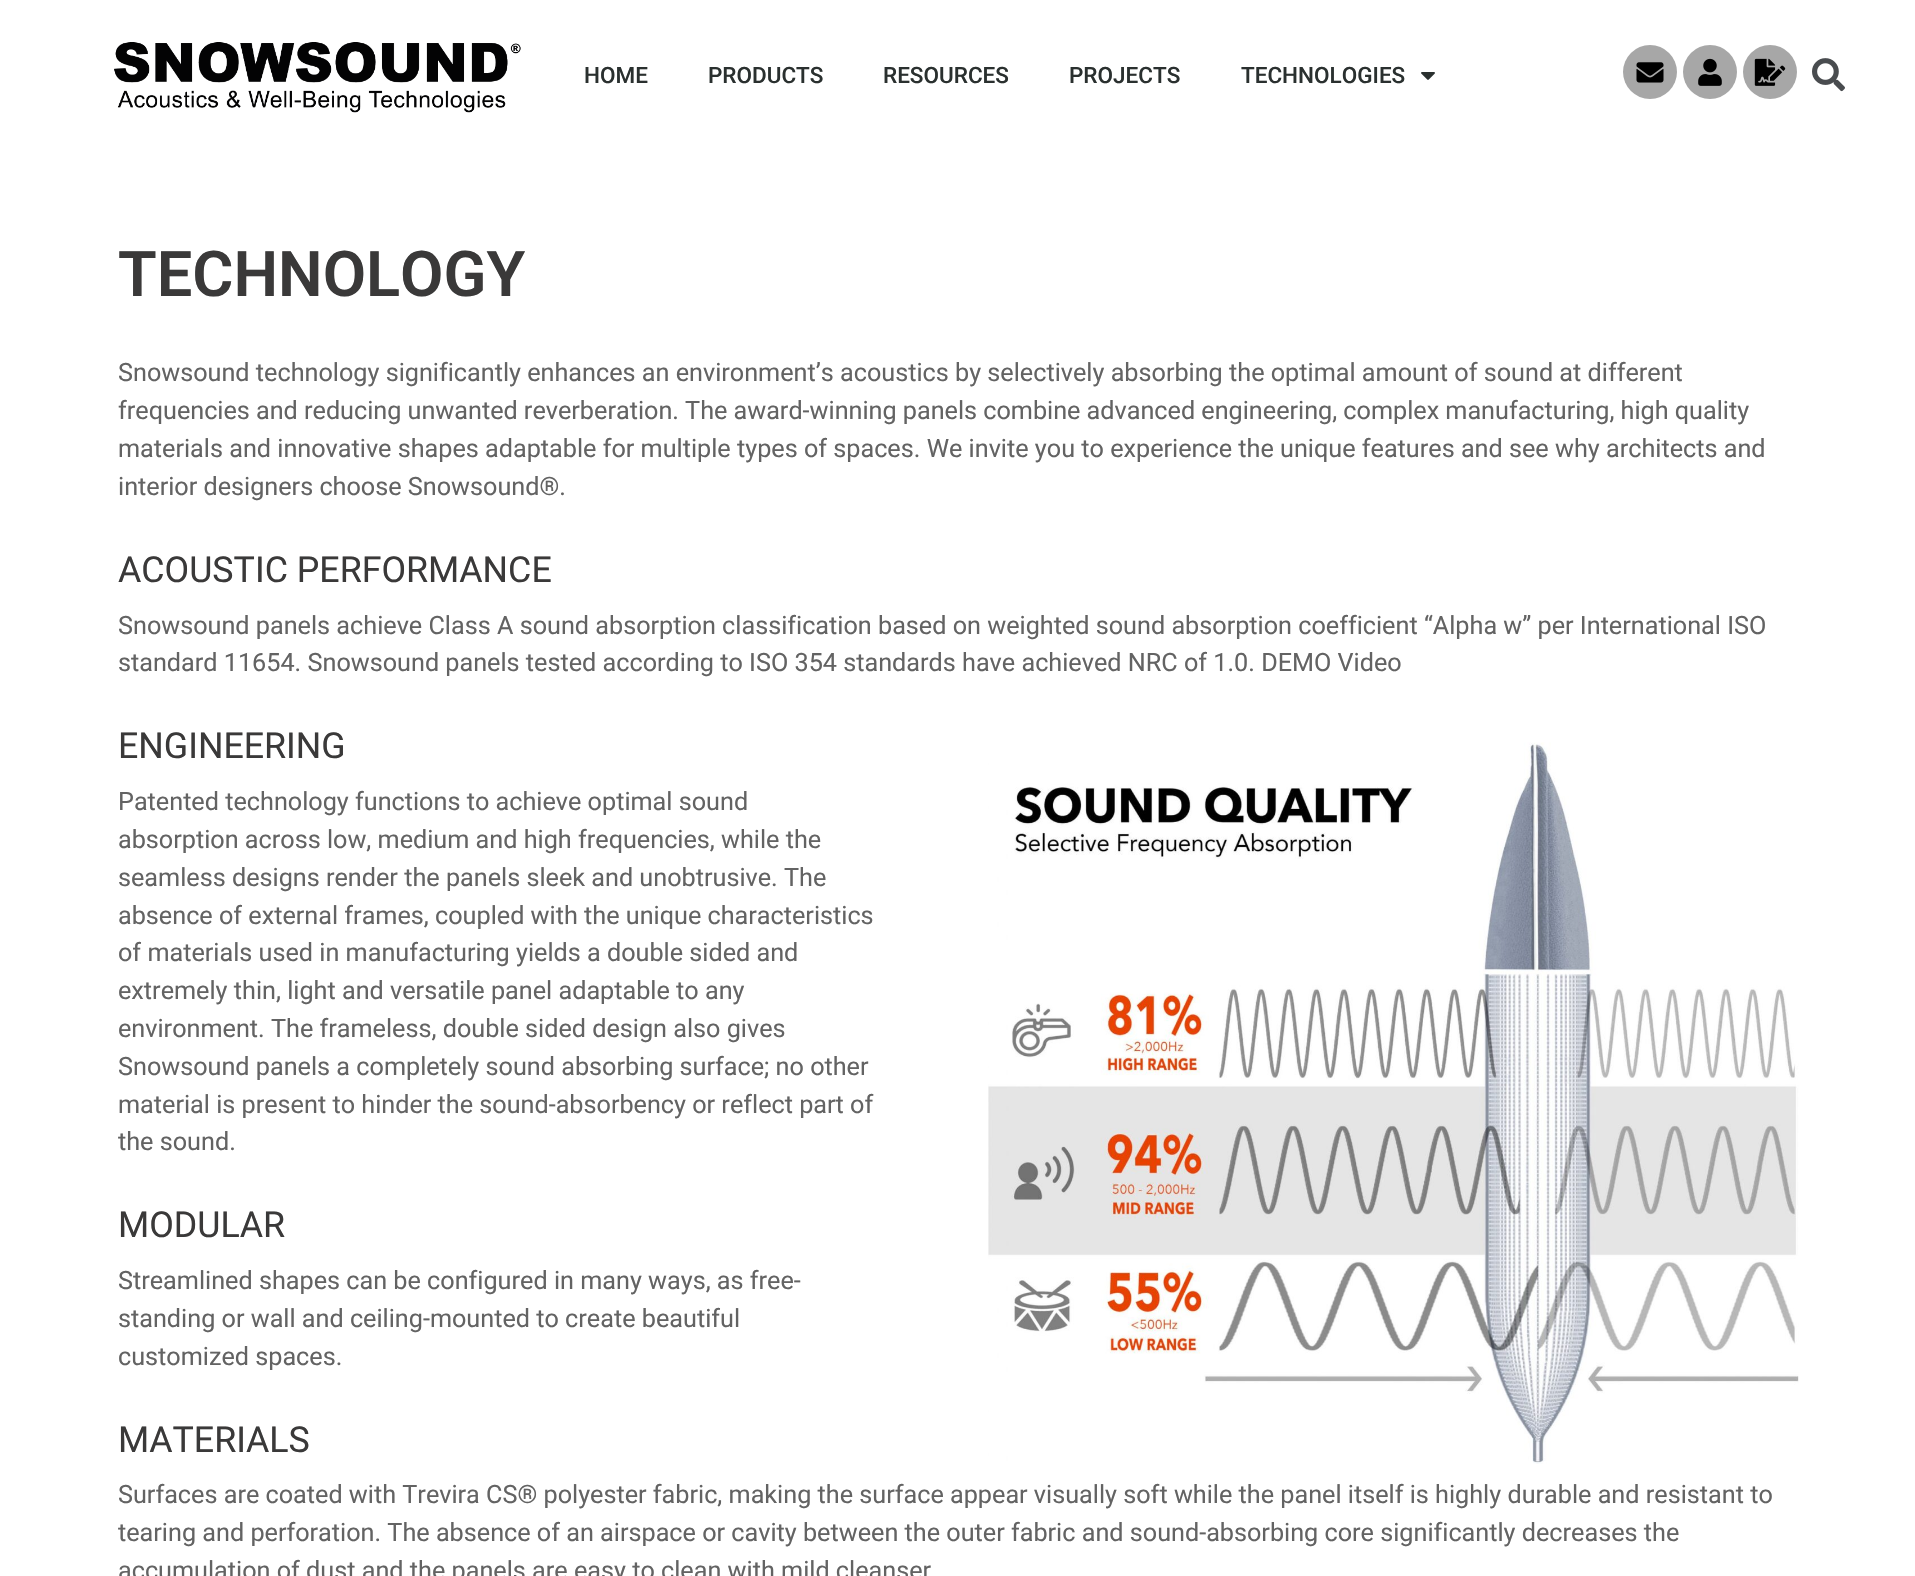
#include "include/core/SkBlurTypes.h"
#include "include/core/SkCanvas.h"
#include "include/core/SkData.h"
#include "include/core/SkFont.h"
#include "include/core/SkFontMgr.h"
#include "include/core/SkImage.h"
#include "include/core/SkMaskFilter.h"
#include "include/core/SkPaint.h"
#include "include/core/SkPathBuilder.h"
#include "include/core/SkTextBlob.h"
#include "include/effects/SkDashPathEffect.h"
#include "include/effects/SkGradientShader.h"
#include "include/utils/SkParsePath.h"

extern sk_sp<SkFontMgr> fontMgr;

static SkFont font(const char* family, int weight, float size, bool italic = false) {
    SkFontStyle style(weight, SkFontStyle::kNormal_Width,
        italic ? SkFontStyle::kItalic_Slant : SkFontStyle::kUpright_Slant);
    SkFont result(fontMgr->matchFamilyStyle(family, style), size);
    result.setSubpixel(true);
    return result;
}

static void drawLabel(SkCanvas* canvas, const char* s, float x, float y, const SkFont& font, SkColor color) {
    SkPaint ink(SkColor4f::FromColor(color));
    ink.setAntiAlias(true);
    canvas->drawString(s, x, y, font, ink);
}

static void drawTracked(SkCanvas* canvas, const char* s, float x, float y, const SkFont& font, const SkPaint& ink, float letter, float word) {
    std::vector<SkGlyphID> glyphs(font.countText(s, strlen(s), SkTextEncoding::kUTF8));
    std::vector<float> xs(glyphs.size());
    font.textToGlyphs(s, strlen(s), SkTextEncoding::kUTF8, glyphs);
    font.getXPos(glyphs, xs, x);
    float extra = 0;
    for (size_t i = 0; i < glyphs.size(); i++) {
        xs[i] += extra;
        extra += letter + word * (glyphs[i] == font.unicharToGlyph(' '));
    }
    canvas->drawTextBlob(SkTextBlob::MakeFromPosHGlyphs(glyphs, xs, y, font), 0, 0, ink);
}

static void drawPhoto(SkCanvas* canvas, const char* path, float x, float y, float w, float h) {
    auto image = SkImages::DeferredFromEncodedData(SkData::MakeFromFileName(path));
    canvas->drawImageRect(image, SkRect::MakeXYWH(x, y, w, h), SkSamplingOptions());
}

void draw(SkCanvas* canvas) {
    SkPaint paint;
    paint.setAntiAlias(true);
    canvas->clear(0xFFFFFFFF);
    drawPhoto(canvas, "assets/img1.png", 114, 42, 407, 71);
    SkFont font1 = font("Roboto", 500, 22.5f);
    drawLabel(canvas, "HOME", 584, 83, font1, 0xFF2A302F);
    drawLabel(canvas, "PRODUCTS", 708, 83, font1, 0xFF2A302F);
    drawLabel(canvas, "RESOURCES", 883, 83, font1, 0xFF2A302F);
    drawLabel(canvas, "PROJECTS", 1069, 83, font1, 0xFF2A302F);
    drawLabel(canvas, "TECHNOLOGIES", 1241, 83, font1, 0xFF2A302F);
    drawPhoto(canvas, "assets/img2.png", 1421, 72, 14, 8);
    paint.setColor(0xFFA7A7A7);
    canvas->drawCircle(1650, 72, 27, paint);
    drawPhoto(canvas, "assets/img3.png", 1636, 62, 28, 21);
    canvas->drawCircle(1710, 72, 27, paint);
    drawPhoto(canvas, "assets/img4.png", 1698, 58, 24, 28);
    canvas->drawCircle(1770, 72, 27, paint);
    drawPhoto(canvas, "assets/img5.png", 1754, 58, 32, 28);
    drawPhoto(canvas, "assets/img6.png", 1812, 58, 33, 34);
    SkFont font2 = font("Roboto", 600, 63);
    drawLabel(canvas, "TECHNOLOGY", 118, 296, font2, 0xFF3A3939);
    SkFont font3 = font("Roboto", 400, 25.2f);
    drawLabel(canvas, "Snowsound technology significantly enhances an environment’s acoustics by selectively absorbing the optimal amount of sound at different", 118, 381, font3, 0xFF636363);
    paint.setColor(0xFF636363);
    drawTracked(canvas, "frequencies and reducing unwanted reverberation. The award-winning panels combine advanced engineering, complex manufacturing, high quality", 118, 419, font3, paint, 0, -0.1f);
    drawLabel(canvas, "materials and innovative shapes adaptable for multiple types of spaces. We invite you to experience the unique features and see why architects and", 118, 457, font3, 0xFF636363);
    drawLabel(canvas, "interior designers choose Snowsound®.", 118, 495, font3, 0xFF636363);
    SkFont font4 = font("Roboto", 400, 35.75f);
    drawLabel(canvas, "ACOUSTIC PERFORMANCE", 118, 582, font4, 0xFF3A3939);
    drawLabel(canvas, "Snowsound panels achieve Class A sound absorption classification based on weighted sound absorption coefficient “Alpha w” per International ISO", 118, 634, font3, 0xFF636363);
    drawLabel(canvas, "standard 11654. Snowsound panels tested according to ISO 354 standards have achieved NRC of 1.0. DEMO Video", 118, 671, font3, 0xFF636363);
    drawLabel(canvas, "ENGINEERING", 118, 758, font4, 0xFF3A3939);
    drawPhoto(canvas, "assets/img7.png", 988, 742, 811, 722);
    drawLabel(canvas, "Patented technology functions to achieve optimal sound", 118, 810, font3, 0xFF636363);
    drawLabel(canvas, "absorption across low, medium and high frequencies, while the", 118, 848, font3, 0xFF636363);
    drawLabel(canvas, "seamless designs render the panels sleek and unobtrusive. The", 118, 886, font3, 0xFF636363);
    drawLabel(canvas, "absence of external frames, coupled with the unique characteristics", 118, 924, font3, 0xFF636363);
    drawLabel(canvas, "of materials used in manufacturing yields a double sided and", 118, 961, font3, 0xFF636363);
    drawLabel(canvas, "extremely thin, light and versatile panel adaptable to any", 118, 999, font3, 0xFF636363);
    drawLabel(canvas, "environment. The frameless, double sided design also gives", 118, 1037, font3, 0xFF636363);
    drawLabel(canvas, "Snowsound panels a completely sound absorbing surface; no other", 118, 1075, font3, 0xFF636363);
    drawLabel(canvas, "material is present to hinder the sound-absorbency or reflect part of", 118, 1113, font3, 0xFF636363);
    drawLabel(canvas, "the sound.", 118, 1150, font3, 0xFF636363);
    drawLabel(canvas, "MODULAR", 118, 1237, font4, 0xFF3A3939);
    drawLabel(canvas, "Streamlined shapes can be configured in many ways, as free-", 118, 1289, font3, 0xFF636363);
    drawLabel(canvas, "standing or wall and ceiling-mounted to create beautiful", 118, 1327, font3, 0xFF636363);
    drawLabel(canvas, "customized spaces.", 118, 1365, font3, 0xFF636363);
    drawLabel(canvas, "MATERIALS", 118, 1452, font4, 0xFF3A3939);
    drawLabel(canvas, "Surfaces are coated with Trevira CS® polyester fabric, making the surface appear visually soft while the panel itself is highly durable and resistant to", 118, 1503, font3, 0xFF636363);
    drawLabel(canvas, "tearing and perforation. The absence of an airspace or cavity between the outer fabric and sound-absorbing core significantly decreases the", 118, 1541, font3, 0xFF636363);
    drawLabel(canvas, "accumulation of dust and the panels are easy to clean with mild cleanser", 118, 1579, font3, 0xFF636363);
}
